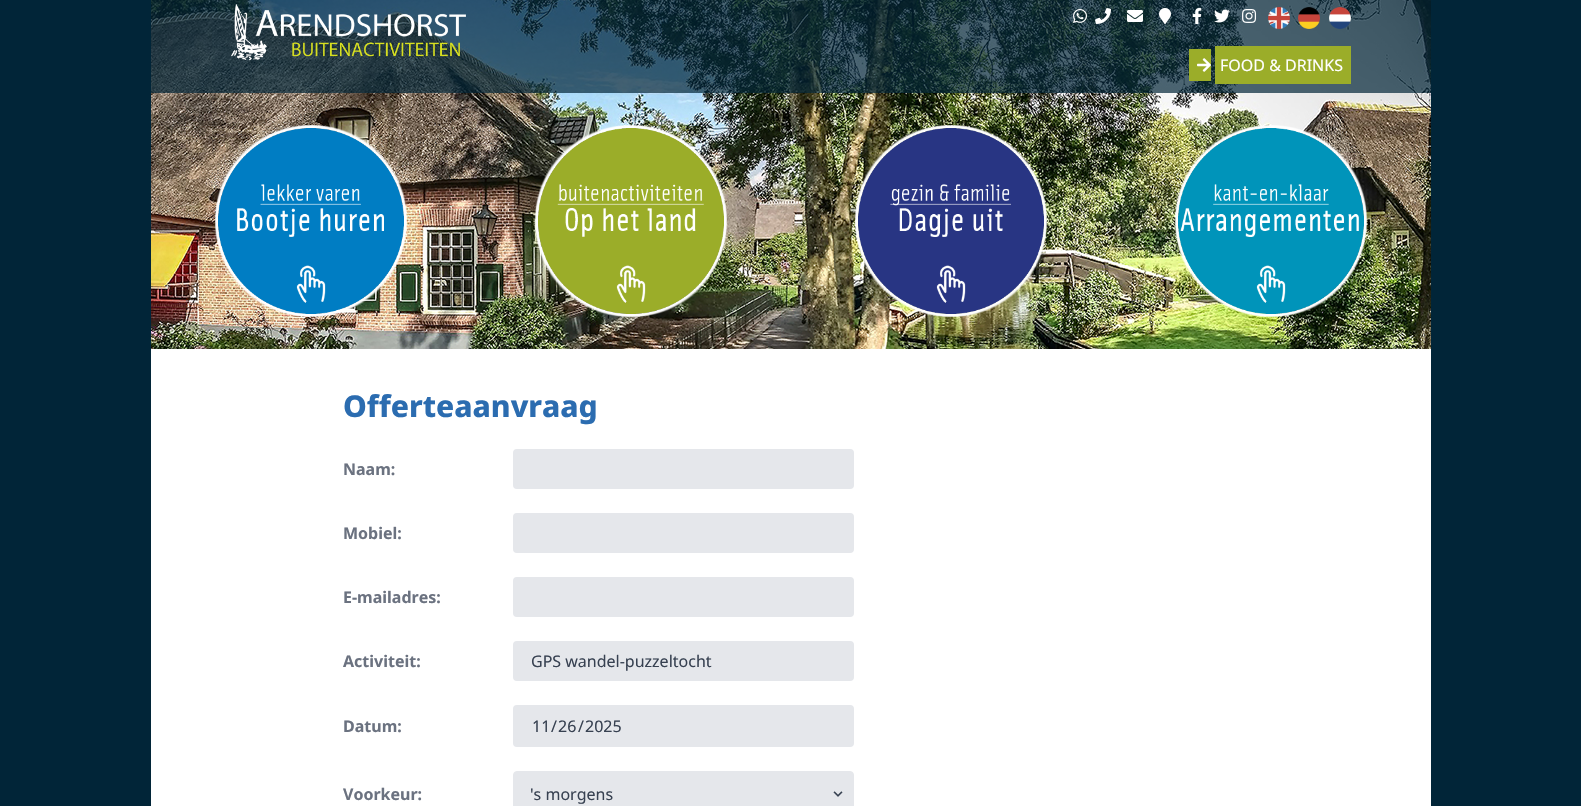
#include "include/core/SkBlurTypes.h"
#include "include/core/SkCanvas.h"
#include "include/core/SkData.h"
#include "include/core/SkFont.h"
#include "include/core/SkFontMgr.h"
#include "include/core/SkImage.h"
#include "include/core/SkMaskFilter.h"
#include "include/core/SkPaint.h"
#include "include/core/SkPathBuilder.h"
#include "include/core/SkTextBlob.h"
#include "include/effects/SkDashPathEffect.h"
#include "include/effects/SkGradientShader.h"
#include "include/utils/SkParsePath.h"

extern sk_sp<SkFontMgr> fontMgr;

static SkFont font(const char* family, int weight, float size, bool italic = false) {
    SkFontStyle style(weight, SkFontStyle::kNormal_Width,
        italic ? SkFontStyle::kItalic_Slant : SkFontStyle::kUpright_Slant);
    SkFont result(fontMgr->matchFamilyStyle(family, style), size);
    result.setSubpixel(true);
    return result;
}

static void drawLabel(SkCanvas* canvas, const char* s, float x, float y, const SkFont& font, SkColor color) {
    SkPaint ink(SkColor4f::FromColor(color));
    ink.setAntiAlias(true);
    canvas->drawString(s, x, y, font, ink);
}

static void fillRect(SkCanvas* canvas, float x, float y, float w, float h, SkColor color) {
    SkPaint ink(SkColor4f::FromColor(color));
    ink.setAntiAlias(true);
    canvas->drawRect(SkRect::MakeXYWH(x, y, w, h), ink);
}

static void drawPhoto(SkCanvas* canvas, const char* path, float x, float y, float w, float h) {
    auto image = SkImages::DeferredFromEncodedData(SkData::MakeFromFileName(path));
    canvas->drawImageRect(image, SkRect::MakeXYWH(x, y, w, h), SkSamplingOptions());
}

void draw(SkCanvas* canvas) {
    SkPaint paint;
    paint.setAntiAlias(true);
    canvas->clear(0xFF012538);
    drawPhoto(canvas, "assets/img1.png", 151, 0, 1280, 349);
    fillRect(canvas, 151, 0, 1280, 93, 0xB3012538);
    drawPhoto(canvas, "assets/img2.png", 231, 4, 235, 57);
    drawPhoto(canvas, "assets/img3.png", 1073, 9, 14, 14);
    drawPhoto(canvas, "assets/img4.png", 1095, 8, 16, 16);
    drawPhoto(canvas, "assets/img5.png", 1127, 10, 16, 12);
    drawPhoto(canvas, "assets/img6.png", 1159, 8, 12, 16);
    drawPhoto(canvas, "assets/img7.png", 1192, 8, 10, 16);
    drawPhoto(canvas, "assets/img8.png", 1214, 9, 16, 14);
    drawPhoto(canvas, "assets/img9.png", 1242, 9, 15, 14);
    drawPhoto(canvas, "assets/img10.png", 1268, 7, 22, 22);
    drawPhoto(canvas, "assets/img11.png", 1298, 7, 22, 22);
    drawPhoto(canvas, "assets/img12.png", 1329, 7, 22, 22);
    fillRect(canvas, 1189, 49, 22, 32, 0xFF9BAD29);
    fillRect(canvas, 1215, 46, 136, 38, 0xFF9BAD29);
    drawPhoto(canvas, "assets/img13.png", 1197, 58, 14, 14);
    SkFont font1 = font("Noto Sans", 400, 16);
    drawLabel(canvas, "FOOD & DRINKS", 1220, 71, font1, 0xFFFFFFFF);
    drawPhoto(canvas, "assets/img14.png", 215, 125, 192, 192);
    drawPhoto(canvas, "assets/img15.png", 535, 125, 192, 192);
    drawPhoto(canvas, "assets/img16.png", 855, 125, 192, 192);
    drawPhoto(canvas, "assets/img17.png", 1175, 125, 192, 192);
    fillRect(canvas, 151, 349, 1280, 457, 0xFFFFFFFF);
    SkFont font2 = font("Noto Sans", 800, 30);
    drawLabel(canvas, "Offerteaanvraag", 343, 417, font2, 0xFF2B6CB0);
    SkFont font3 = font("Noto Sans", 700, 16);
    drawLabel(canvas, "Naam:", 343, 475, font3, 0xFF6B7280);
    paint.setColor(0xFFE5E7EB);
    canvas->drawRoundRect(SkRect::MakeXYWH(514, 450, 339, 38), 3, 3, paint);
    paint.setStroke(true);
    paint.setStrokeWidth(2);
    canvas->drawRoundRect(SkRect::MakeXYWH(514, 450, 339, 38), 3, 3, paint);
    drawLabel(canvas, "Mobiel:", 343, 539, font3, 0xFF6B7280);
    paint.setStroke(false);
    canvas->drawRoundRect(SkRect::MakeXYWH(514, 514, 339, 38), 3, 3, paint);
    paint.setStroke(true);
    canvas->drawRoundRect(SkRect::MakeXYWH(514, 514, 339, 38), 3, 3, paint);
    drawLabel(canvas, "E-mailadres:", 343, 603, font3, 0xFF6B7280);
    paint.setStroke(false);
    canvas->drawRoundRect(SkRect::MakeXYWH(514, 578, 339, 38), 3, 3, paint);
    paint.setStroke(true);
    canvas->drawRoundRect(SkRect::MakeXYWH(514, 578, 339, 38), 3, 3, paint);
    drawLabel(canvas, "Activiteit:", 343, 667, font3, 0xFF6B7280);
    paint.setStroke(false);
    canvas->drawRoundRect(SkRect::MakeXYWH(514, 642, 339, 38), 3, 3, paint);
    paint.setStroke(true);
    canvas->drawRoundRect(SkRect::MakeXYWH(514, 642, 339, 38), 3, 3, paint);
    drawLabel(canvas, "GPS wandel-puzzeltocht", 531, 667, font1, 0xFF374151);
    drawLabel(canvas, "Datum:", 343, 732, font3, 0xFF6B7280);
    paint.setStroke(false);
    canvas->drawRoundRect(SkRect::MakeXYWH(514, 706, 339, 40), 3, 3, paint);
    paint.setStroke(true);
    canvas->drawRoundRect(SkRect::MakeXYWH(514, 706, 339, 40), 3, 3, paint);
    drawLabel(canvas, "11", 532, 732, font1, 0xFF374151);
    drawLabel(canvas, "/", 551, 732, font1, 0xFF374151);
    drawLabel(canvas, "26", 558, 732, font1, 0xFF374151);
    drawLabel(canvas, "/", 578, 732, font1, 0xFF374151);
    drawLabel(canvas, "2025", 585, 732, font1, 0xFF374151);
    drawLabel(canvas, "Voorkeur:", 343, 800, font3, 0xFF6B7280);
    paint.setStroke(false);
    canvas->drawRoundRect(SkRect::MakeXYWH(513.5f, 771.5f, 340, 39), 3.5f, 3.5f, paint);
    paint.setStroke(true);
    paint.setStrokeWidth(1);
    canvas->drawRoundRect(SkRect::MakeXYWH(513.5f, 771.5f, 340, 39), 3.5f, 3.5f, paint);
    drawLabel(canvas, "'s morgens", 530, 800, font1, 0xFF374151);
    drawPhoto(canvas, "assets/img18.png", 833, 791, 10, 6);
}
